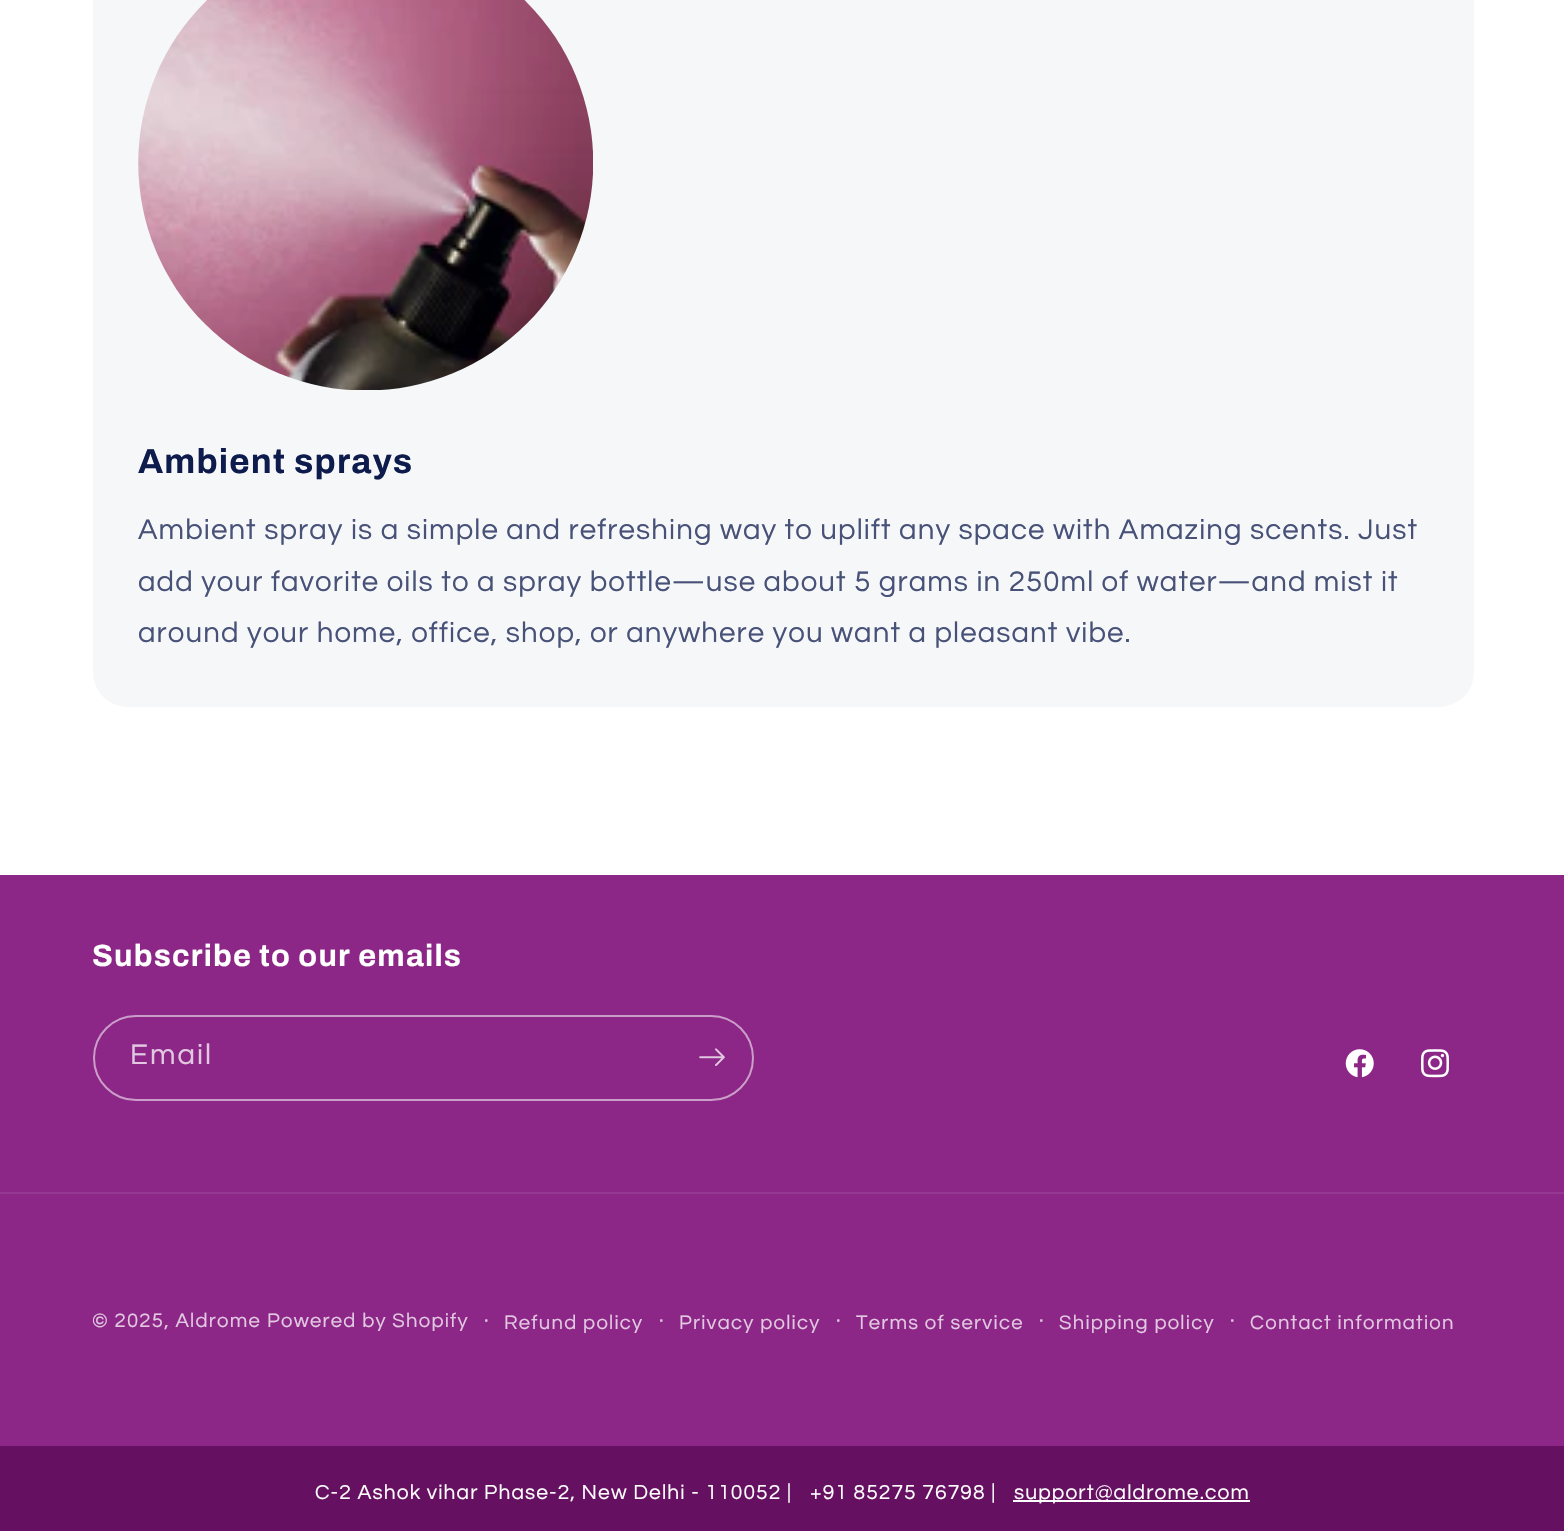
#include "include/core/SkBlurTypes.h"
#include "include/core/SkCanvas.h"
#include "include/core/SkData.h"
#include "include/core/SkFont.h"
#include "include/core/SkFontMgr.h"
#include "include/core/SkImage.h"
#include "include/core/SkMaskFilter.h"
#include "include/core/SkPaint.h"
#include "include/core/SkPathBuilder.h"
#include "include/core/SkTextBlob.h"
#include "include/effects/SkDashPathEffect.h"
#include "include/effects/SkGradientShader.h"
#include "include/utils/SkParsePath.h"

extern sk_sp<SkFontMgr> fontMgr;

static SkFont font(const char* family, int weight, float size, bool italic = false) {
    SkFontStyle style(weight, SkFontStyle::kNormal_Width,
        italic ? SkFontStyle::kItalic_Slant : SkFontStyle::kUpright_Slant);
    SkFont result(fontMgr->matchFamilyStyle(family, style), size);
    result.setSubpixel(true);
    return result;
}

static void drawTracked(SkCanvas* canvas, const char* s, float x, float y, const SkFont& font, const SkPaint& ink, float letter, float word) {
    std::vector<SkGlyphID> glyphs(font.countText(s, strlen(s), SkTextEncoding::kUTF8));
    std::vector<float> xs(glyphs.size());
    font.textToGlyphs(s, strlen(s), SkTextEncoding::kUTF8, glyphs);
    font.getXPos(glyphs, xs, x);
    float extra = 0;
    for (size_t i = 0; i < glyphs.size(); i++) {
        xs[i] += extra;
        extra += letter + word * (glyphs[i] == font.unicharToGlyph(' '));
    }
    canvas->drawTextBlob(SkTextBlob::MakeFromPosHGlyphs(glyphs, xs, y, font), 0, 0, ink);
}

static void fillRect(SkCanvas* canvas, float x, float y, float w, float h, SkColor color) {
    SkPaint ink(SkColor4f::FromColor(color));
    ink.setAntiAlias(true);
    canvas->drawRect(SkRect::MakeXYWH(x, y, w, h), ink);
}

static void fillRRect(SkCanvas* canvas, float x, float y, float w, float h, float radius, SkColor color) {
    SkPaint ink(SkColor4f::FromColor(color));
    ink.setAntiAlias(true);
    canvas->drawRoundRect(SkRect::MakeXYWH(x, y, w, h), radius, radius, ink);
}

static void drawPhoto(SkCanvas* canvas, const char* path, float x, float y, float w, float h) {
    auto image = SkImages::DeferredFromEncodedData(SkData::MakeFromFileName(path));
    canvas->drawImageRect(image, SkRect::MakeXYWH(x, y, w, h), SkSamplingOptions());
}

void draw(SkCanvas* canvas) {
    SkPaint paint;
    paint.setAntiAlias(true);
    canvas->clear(0xFFFFFFFF);
    fillRRect(canvas, 93, -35, 1381, 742, 35, 0xFFF6F7F9);
    drawPhoto(canvas, "assets/img1.png", 138, 0, 455, 390);
    SkFont font1 = font("Archivo", 700, 34.75f);
    paint.setColor(0xFF0E1B4D);
    drawTracked(canvas, "Ambient sprays", 138, 473, font1, paint, 1.2f, 0);
    SkFont font2 = font("Questrial", 400, 29.4f);
    paint.setColor(0xFF485278);
    drawTracked(canvas, "Ambient spray is a simple and refreshing way to uplift any space with Amazing scents. Just", 138, 539, font2, paint, 1.1f, 0);
    drawTracked(canvas, "add your favorite oils to a spray bottle—use about 5 grams in 250ml of water—and mist it", 138, 591, font2, paint, 1.1f, 0);
    drawTracked(canvas, "around your home, office, shop, or anywhere you want a pleasant vibe.", 138, 642, font2, paint, 1.1f, 0);
    fillRect(canvas, 0, 875, 1564, 571, 0xFF8C2787);
    SkFont font3 = font("Archivo", 700, 30.75f);
    paint.setColor(0xFFFFFFFF);
    drawTracked(canvas, "Subscribe to our emails", 92, 966, font3, paint, 1.2f, 0);
    paint.setStroke(true);
    paint.setStrokeWidth(2);
    paint.setColor(0xFFCB9EC9);
    canvas->drawRoundRect(SkRect::MakeXYWH(94, 1016, 659, 84), 42, 42, paint);
    paint.setStroke(false);
    paint.setColor(0xFFE2C9E1);
    drawTracked(canvas, "Email", 130, 1064, font2, paint, 2, 0);
    drawPhoto(canvas, "assets/img2.png", 699, 1048, 26, 18);
    drawPhoto(canvas, "assets/img3.png", 1345, 1049, 29, 29);
    drawPhoto(canvas, "assets/img4.png", 1421, 1049, 28, 29);
    fillRect(canvas, 0, 1192, 1564, 2, 0xFF953891);
    SkFont font4 = font("Questrial", 400, 20.25f);
    drawTracked(canvas, "© 2025, Aldrome", 92, 1327, font4, paint, 1.25f, 0);
    drawTracked(canvas, "Powered by Shopify", 267, 1327, font4, paint, 1.25f, 0);
    SkFont font5 = font("Questrial", 400, 22);
    drawTracked(canvas, "·", 484, 1327, font5, paint, 1.25f, 0);
    drawTracked(canvas, "Refund policy", 504, 1329, font4, paint, 1.25f, 0);
    drawTracked(canvas, "·", 659, 1327, font5, paint, 1.25f, 0);
    drawTracked(canvas, "Privacy policy", 679, 1329, font4, paint, 1.25f, 0);
    drawTracked(canvas, "·", 836, 1327, font5, paint, 1.25f, 0);
    drawTracked(canvas, "Terms of service", 856, 1329, font4, paint, 1.25f, 0);
    drawTracked(canvas, "·", 1039, 1327, font5, paint, 1.25f, 0);
    drawTracked(canvas, "Shipping policy", 1059, 1329, font4, paint, 1.25f, 0);
    drawTracked(canvas, "·", 1230, 1327, font5, paint, 1.25f, 0);
    drawTracked(canvas, "Contact information", 1250, 1329, font4, paint, 1.25f, 0);
    fillRect(canvas, 0, 1446, 1564, 85, 0xFF661061);
    SkFont font6 = font("Questrial", 400, 21);
    paint.setColor(0xFFFFFFFF);
    drawTracked(canvas, "C-2 Ashok vihar Phase-2, New Delhi - 110052 |", 315, 1499, font6, paint, 1.1f, 0);
    drawTracked(canvas, "+91 85275 76798 |", 810, 1499, font6, paint, 1.1f, 0);
    fillRect(canvas, 1013, 1500, 237, 2, 0xFFFFFFFF);
    drawTracked(canvas, "support@aldrome.com", 1014, 1499, font6, paint, 1.1f, 0);
}
